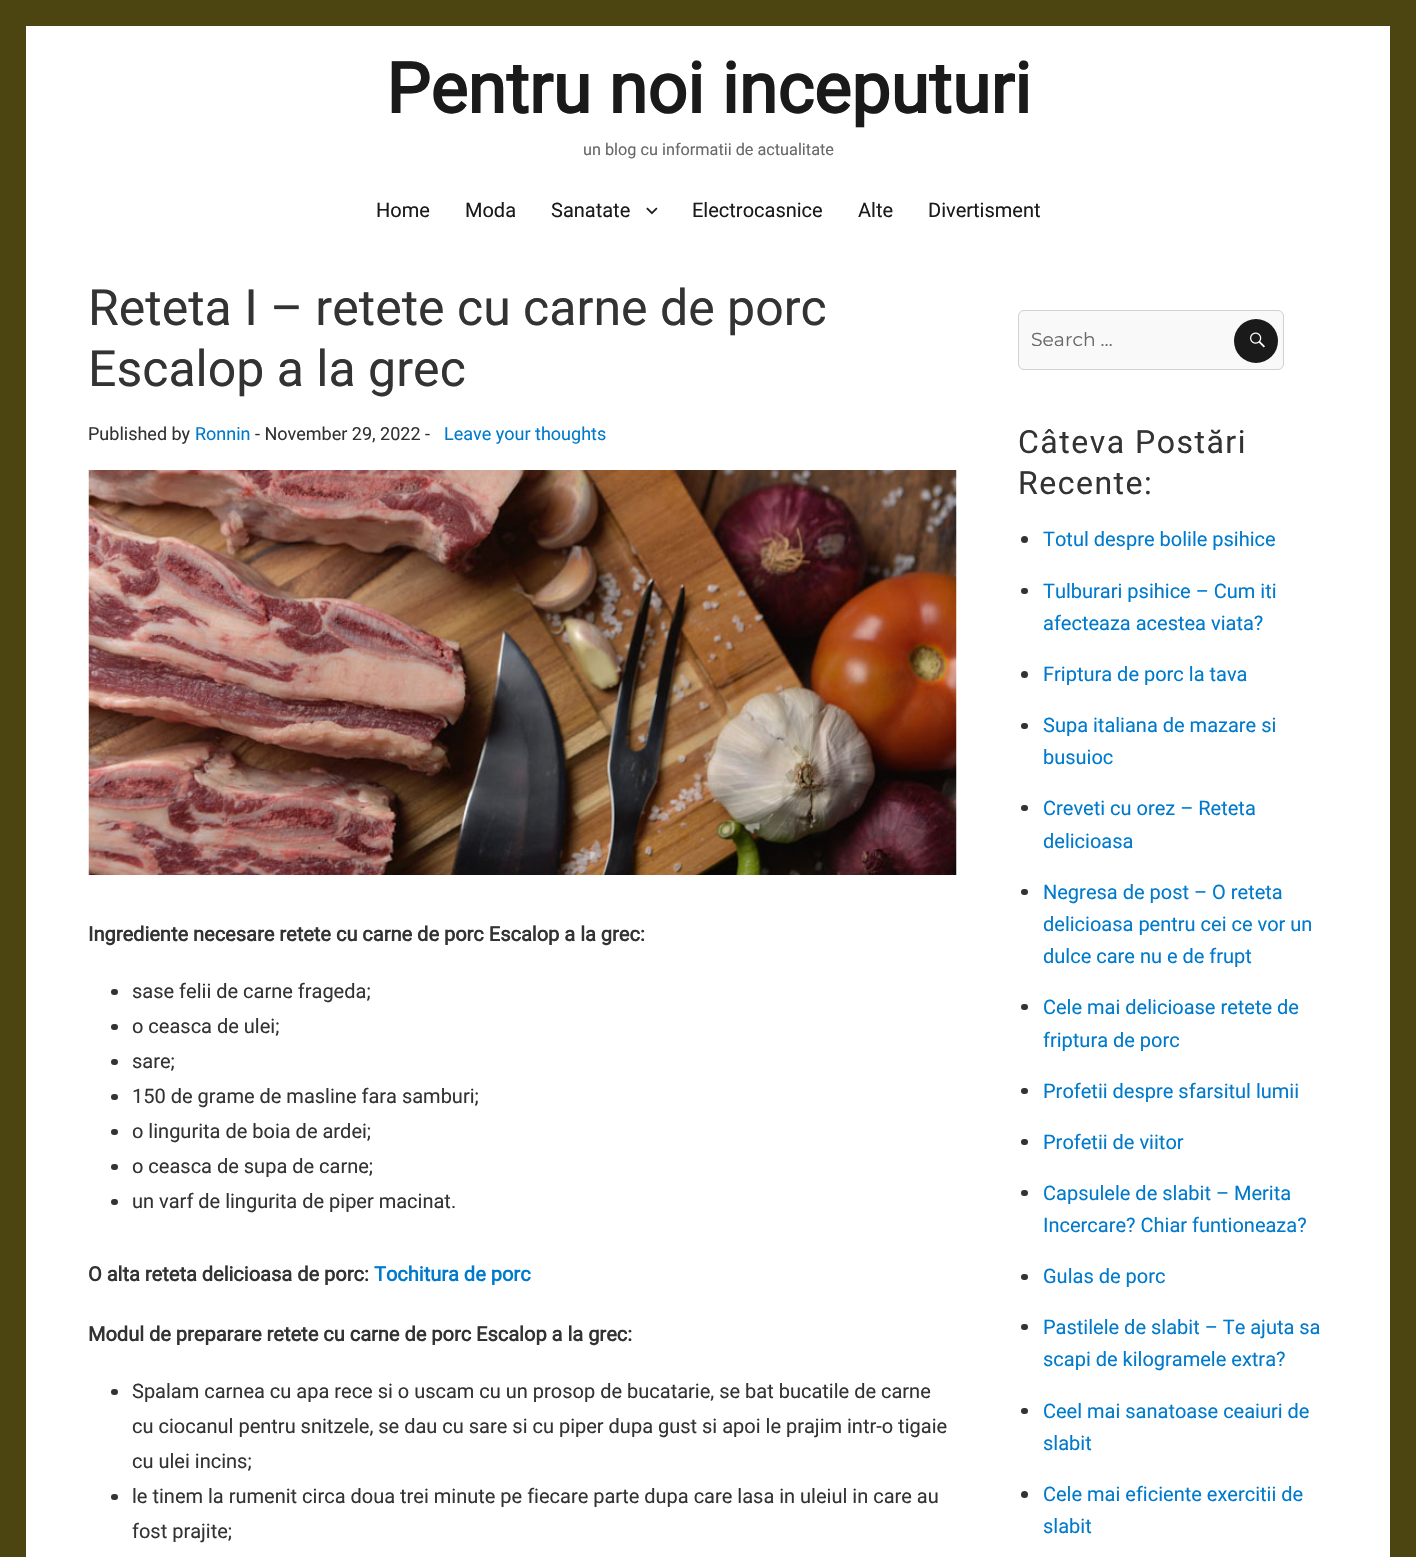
#include "include/core/SkBlurTypes.h"
#include "include/core/SkCanvas.h"
#include "include/core/SkData.h"
#include "include/core/SkFont.h"
#include "include/core/SkFontMgr.h"
#include "include/core/SkImage.h"
#include "include/core/SkMaskFilter.h"
#include "include/core/SkPaint.h"
#include "include/core/SkPathBuilder.h"
#include "include/core/SkTextBlob.h"
#include "include/effects/SkDashPathEffect.h"
#include "include/effects/SkGradientShader.h"
#include "include/utils/SkParsePath.h"

extern sk_sp<SkFontMgr> fontMgr;

static SkFont font(const char* family, int weight, float size, bool italic = false) {
    SkFontStyle style(weight, SkFontStyle::kNormal_Width,
        italic ? SkFontStyle::kItalic_Slant : SkFontStyle::kUpright_Slant);
    SkFont result(fontMgr->matchFamilyStyle(family, style), size);
    result.setSubpixel(true);
    return result;
}

static void drawLabel(SkCanvas* canvas, const char* s, float x, float y, const SkFont& font, SkColor color) {
    SkPaint ink(SkColor4f::FromColor(color));
    ink.setAntiAlias(true);
    canvas->drawString(s, x, y, font, ink);
}

static void drawTracked(SkCanvas* canvas, const char* s, float x, float y, const SkFont& font, const SkPaint& ink, float letter, float word) {
    std::vector<SkGlyphID> glyphs(font.countText(s, strlen(s), SkTextEncoding::kUTF8));
    std::vector<float> xs(glyphs.size());
    font.textToGlyphs(s, strlen(s), SkTextEncoding::kUTF8, glyphs);
    font.getXPos(glyphs, xs, x);
    float extra = 0;
    for (size_t i = 0; i < glyphs.size(); i++) {
        xs[i] += extra;
        extra += letter + word * (glyphs[i] == font.unicharToGlyph(' '));
    }
    canvas->drawTextBlob(SkTextBlob::MakeFromPosHGlyphs(glyphs, xs, y, font), 0, 0, ink);
}

static void fillRect(SkCanvas* canvas, float x, float y, float w, float h, SkColor color) {
    SkPaint ink(SkColor4f::FromColor(color));
    ink.setAntiAlias(true);
    canvas->drawRect(SkRect::MakeXYWH(x, y, w, h), ink);
}

static void fillRRect(SkCanvas* canvas, float x, float y, float w, float h, float radius, SkColor color) {
    SkPaint ink(SkColor4f::FromColor(color));
    ink.setAntiAlias(true);
    canvas->drawRoundRect(SkRect::MakeXYWH(x, y, w, h), radius, radius, ink);
}

static void drawPhoto(SkCanvas* canvas, const char* path, float x, float y, float w, float h) {
    auto image = SkImages::DeferredFromEncodedData(SkData::MakeFromFileName(path));
    canvas->drawImageRect(image, SkRect::MakeXYWH(x, y, w, h), SkSamplingOptions());
}

void draw(SkCanvas* canvas) {
    SkPaint paint;
    paint.setAntiAlias(true);
    canvas->clear(0xFF4C4511);
    fillRect(canvas, 26, 26, 1364, 1531, 0xFFFFFFFF);
    SkFont font1 = font("Roboto", 700, 70);
    drawLabel(canvas, "Pentru noi inceputuri", 386, 113, font1, 0xFF1A1A1A);
    SkFont font2 = font("Roboto", 400, 16.25f);
    drawLabel(canvas, "un blog cu informatii de actualitate", 583, 155, font2, 0xFF686868);
    SkFont font3 = font("Roboto", 400, 20);
    drawLabel(canvas, "Home", 376, 217, font3, 0xFF1A1A1A);
    drawLabel(canvas, "Moda", 465, 217, font3, 0xFF1A1A1A);
    drawLabel(canvas, "Sanatate", 551, 217, font3, 0xFF1A1A1A);
    drawPhoto(canvas, "assets/img1.png", 646, 207, 12, 8);
    drawLabel(canvas, "Electrocasnice", 692, 217, font3, 0xFF1A1A1A);
    drawLabel(canvas, "Alte", 858, 217, font3, 0xFF1A1A1A);
    drawLabel(canvas, "Divertisment", 928, 217, font3, 0xFF1A1A1A);
    SkFont font4 = font("Roboto", 400, 50);
    drawLabel(canvas, "Reteta I – retete cu carne de porc", 88, 325, font4, 0xFF333333);
    drawLabel(canvas, "Escalop a la grec", 88, 386, font4, 0xFF333333);
    SkFont font5 = font("Roboto", 400, 18);
    drawLabel(canvas, "Published by", 88, 440, font5, 0xFF333333);
    drawLabel(canvas, "Ronnin", 195, 440, font5, 0xFF007ACC);
    drawLabel(canvas, "- November 29, 2022 -", 255, 440, font5, 0xFF333333);
    drawLabel(canvas, "Leave your thoughts", 444, 440, font5, 0xFF007ACC);
    drawPhoto(canvas, "assets/img2.png", 88, 470, 869, 405);
    SkFont font6 = font("Roboto", 700, 20);
    drawLabel(canvas, "Ingrediente necesare retete cu carne de porc Escalop a la grec:", 88, 941, font6, 0xFF333333);
    fillRRect(canvas, 111, 989, 7, 6, 3, 0xFF333333);
    drawLabel(canvas, "sase felii de carne frageda;", 132, 998, font3, 0xFF333333);
    fillRRect(canvas, 111, 1024, 7, 6, 3, 0xFF333333);
    drawLabel(canvas, "o ceasca de ulei;", 132, 1033, font3, 0xFF333333);
    fillRRect(canvas, 111, 1059, 7, 6, 3, 0xFF333333);
    drawLabel(canvas, "sare;", 132, 1068, font3, 0xFF333333);
    fillRRect(canvas, 111, 1094, 7, 6, 3, 0xFF333333);
    drawLabel(canvas, "150 de grame de masline fara samburi;", 132, 1103, font3, 0xFF333333);
    fillRRect(canvas, 111, 1129, 7, 6, 3, 0xFF333333);
    drawLabel(canvas, "o lingurita de boia de ardei;", 132, 1138, font3, 0xFF333333);
    fillRRect(canvas, 111, 1164, 7, 6, 3, 0xFF333333);
    drawLabel(canvas, "o ceasca de supa de carne;", 132, 1173, font3, 0xFF333333);
    fillRRect(canvas, 111, 1199, 7, 6, 3, 0xFF333333);
    drawLabel(canvas, "un varf de lingurita de piper macinat.", 132, 1208, font3, 0xFF333333);
    drawLabel(canvas, "O alta reteta delicioasa de porc:", 88, 1281, font6, 0xFF333333);
    drawLabel(canvas, "Tochitura de porc", 374, 1281, font6, 0xFF007ACC);
    drawLabel(canvas, "Modul de preparare retete cu carne de porc Escalop a la grec:", 88, 1341, font6, 0xFF333333);
    fillRRect(canvas, 111, 1389, 7, 6, 3, 0xFF333333);
    drawLabel(canvas, "Spalam carnea cu apa rece si o uscam cu un prosop de bucatarie, se bat bucatile de carne", 132, 1398, font3, 0xFF333333);
    drawLabel(canvas, "cu ciocanul pentru snitzele, se dau cu sare si cu piper dupa gust si apoi le prajim intr-o tigaie", 132, 1433, font3, 0xFF333333);
    drawLabel(canvas, "cu ulei incins;", 132, 1468, font3, 0xFF333333);
    fillRRect(canvas, 111, 1494, 7, 6, 3, 0xFF333333);
    drawLabel(canvas, "le tinem la rumenit circa doua trei minute pe fiecare parte dupa care lasa in uleiul in care au", 132, 1503, font3, 0xFF333333);
    drawLabel(canvas, "fost prajite;", 132, 1538, font3, 0xFF333333);
    paint.setColor(0xFFF9F9F9);
    canvas->drawRoundRect(SkRect::MakeXYWH(1018.5f, 310.5f, 265, 59), 5.5f, 5.5f, paint);
    paint.setStroke(true);
    paint.setStrokeWidth(1);
    paint.setColor(0xFFD1D1D1);
    canvas->drawRoundRect(SkRect::MakeXYWH(1018.5f, 310.5f, 265, 59), 5.5f, 5.5f, paint);
    SkFont font7 = font("Montserrat", 400, 18.75f);
    drawLabel(canvas, "Search …", 1031, 346, font7, 0xFF686868);
    paint.setStroke(false);
    paint.setColor(0xFF1A1A1A);
    canvas->drawCircle(1256, 341, 22, paint);
    drawPhoto(canvas, "assets/img3.png", 1250, 332, 15, 16);
    SkFont font8 = font("Roboto", 400, 32);
    paint.setColor(0xFF333333);
    drawTracked(canvas, "Câteva Postări", 1018, 453, font8, paint, 1.5f, 0);
    drawTracked(canvas, "Recente:", 1018, 494, font8, paint, 1.5f, 0);
    canvas->drawCircle(1024.5f, 539.5f, 3.5f, paint);
    drawLabel(canvas, "Totul despre bolile psihice", 1043, 546, font3, 0xFF007ACC);
    fillRRect(canvas, 1021, 588, 7, 6, 3, 0xFF333333);
    drawLabel(canvas, "Tulburari psihice – Cum iti", 1043, 598, font3, 0xFF007ACC);
    drawLabel(canvas, "afecteaza acestea viata?", 1043, 630, font3, 0xFF007ACC);
    canvas->drawCircle(1024.5f, 674.5f, 3.5f, paint);
    drawLabel(canvas, "Friptura de porc la tava", 1043, 681, font3, 0xFF007ACC);
    fillRRect(canvas, 1021, 723, 7, 6, 3, 0xFF333333);
    drawLabel(canvas, "Supa italiana de mazare si", 1043, 732, font3, 0xFF007ACC);
    drawLabel(canvas, "busuioc", 1043, 764, font3, 0xFF007ACC);
    fillRRect(canvas, 1021, 805, 7, 6, 3, 0xFF333333);
    drawLabel(canvas, "Creveti cu orez – Reteta", 1043, 815, font3, 0xFF007ACC);
    drawLabel(canvas, "delicioasa", 1043, 848, font3, 0xFF007ACC);
    fillRRect(canvas, 1021, 889, 7, 6, 3, 0xFF333333);
    drawLabel(canvas, "Negresa de post – O reteta", 1043, 899, font3, 0xFF007ACC);
    drawLabel(canvas, "delicioasa pentru cei ce vor un", 1043, 931, font3, 0xFF007ACC);
    drawLabel(canvas, "dulce care nu e de frupt", 1043, 963, font3, 0xFF007ACC);
    fillRRect(canvas, 1021, 1004, 7, 6, 3, 0xFF333333);
    drawLabel(canvas, "Cele mai delicioase retete de", 1043, 1014, font3, 0xFF007ACC);
    drawLabel(canvas, "friptura de porc", 1043, 1047, font3, 0xFF007ACC);
    fillRRect(canvas, 1021, 1088, 7, 6, 3, 0xFF333333);
    drawLabel(canvas, "Profetii despre sfarsitul lumii", 1043, 1098, font3, 0xFF007ACC);
    fillRRect(canvas, 1021, 1139, 7, 6, 3, 0xFF333333);
    drawLabel(canvas, "Profetii de viitor", 1043, 1149, font3, 0xFF007ACC);
    fillRRect(canvas, 1021, 1190, 7, 6, 3, 0xFF333333);
    drawLabel(canvas, "Capsulele de slabit – Merita", 1043, 1200, font3, 0xFF007ACC);
    drawLabel(canvas, "Incercare? Chiar funtioneaza?", 1043, 1232, font3, 0xFF007ACC);
    fillRRect(canvas, 1021, 1274, 7, 6, 3, 0xFF333333);
    drawLabel(canvas, "Gulas de porc", 1043, 1283, font3, 0xFF007ACC);
    fillRRect(canvas, 1021, 1324, 7, 6, 3, 0xFF333333);
    drawLabel(canvas, "Pastilele de slabit – Te ajuta sa", 1043, 1334, font3, 0xFF007ACC);
    drawLabel(canvas, "scapi de kilogramele extra?", 1043, 1366, font3, 0xFF007ACC);
    fillRRect(canvas, 1021, 1408, 7, 6, 3, 0xFF333333);
    drawLabel(canvas, "Ceel mai sanatoase ceaiuri de", 1043, 1418, font3, 0xFF007ACC);
    drawLabel(canvas, "slabit", 1043, 1450, font3, 0xFF007ACC);
    canvas->drawCircle(1024.5f, 1494.5f, 3.5f, paint);
    drawLabel(canvas, "Cele mai eficiente exercitii de", 1043, 1501, font3, 0xFF007ACC);
    drawLabel(canvas, "slabit", 1043, 1533, font3, 0xFF007ACC);
}
